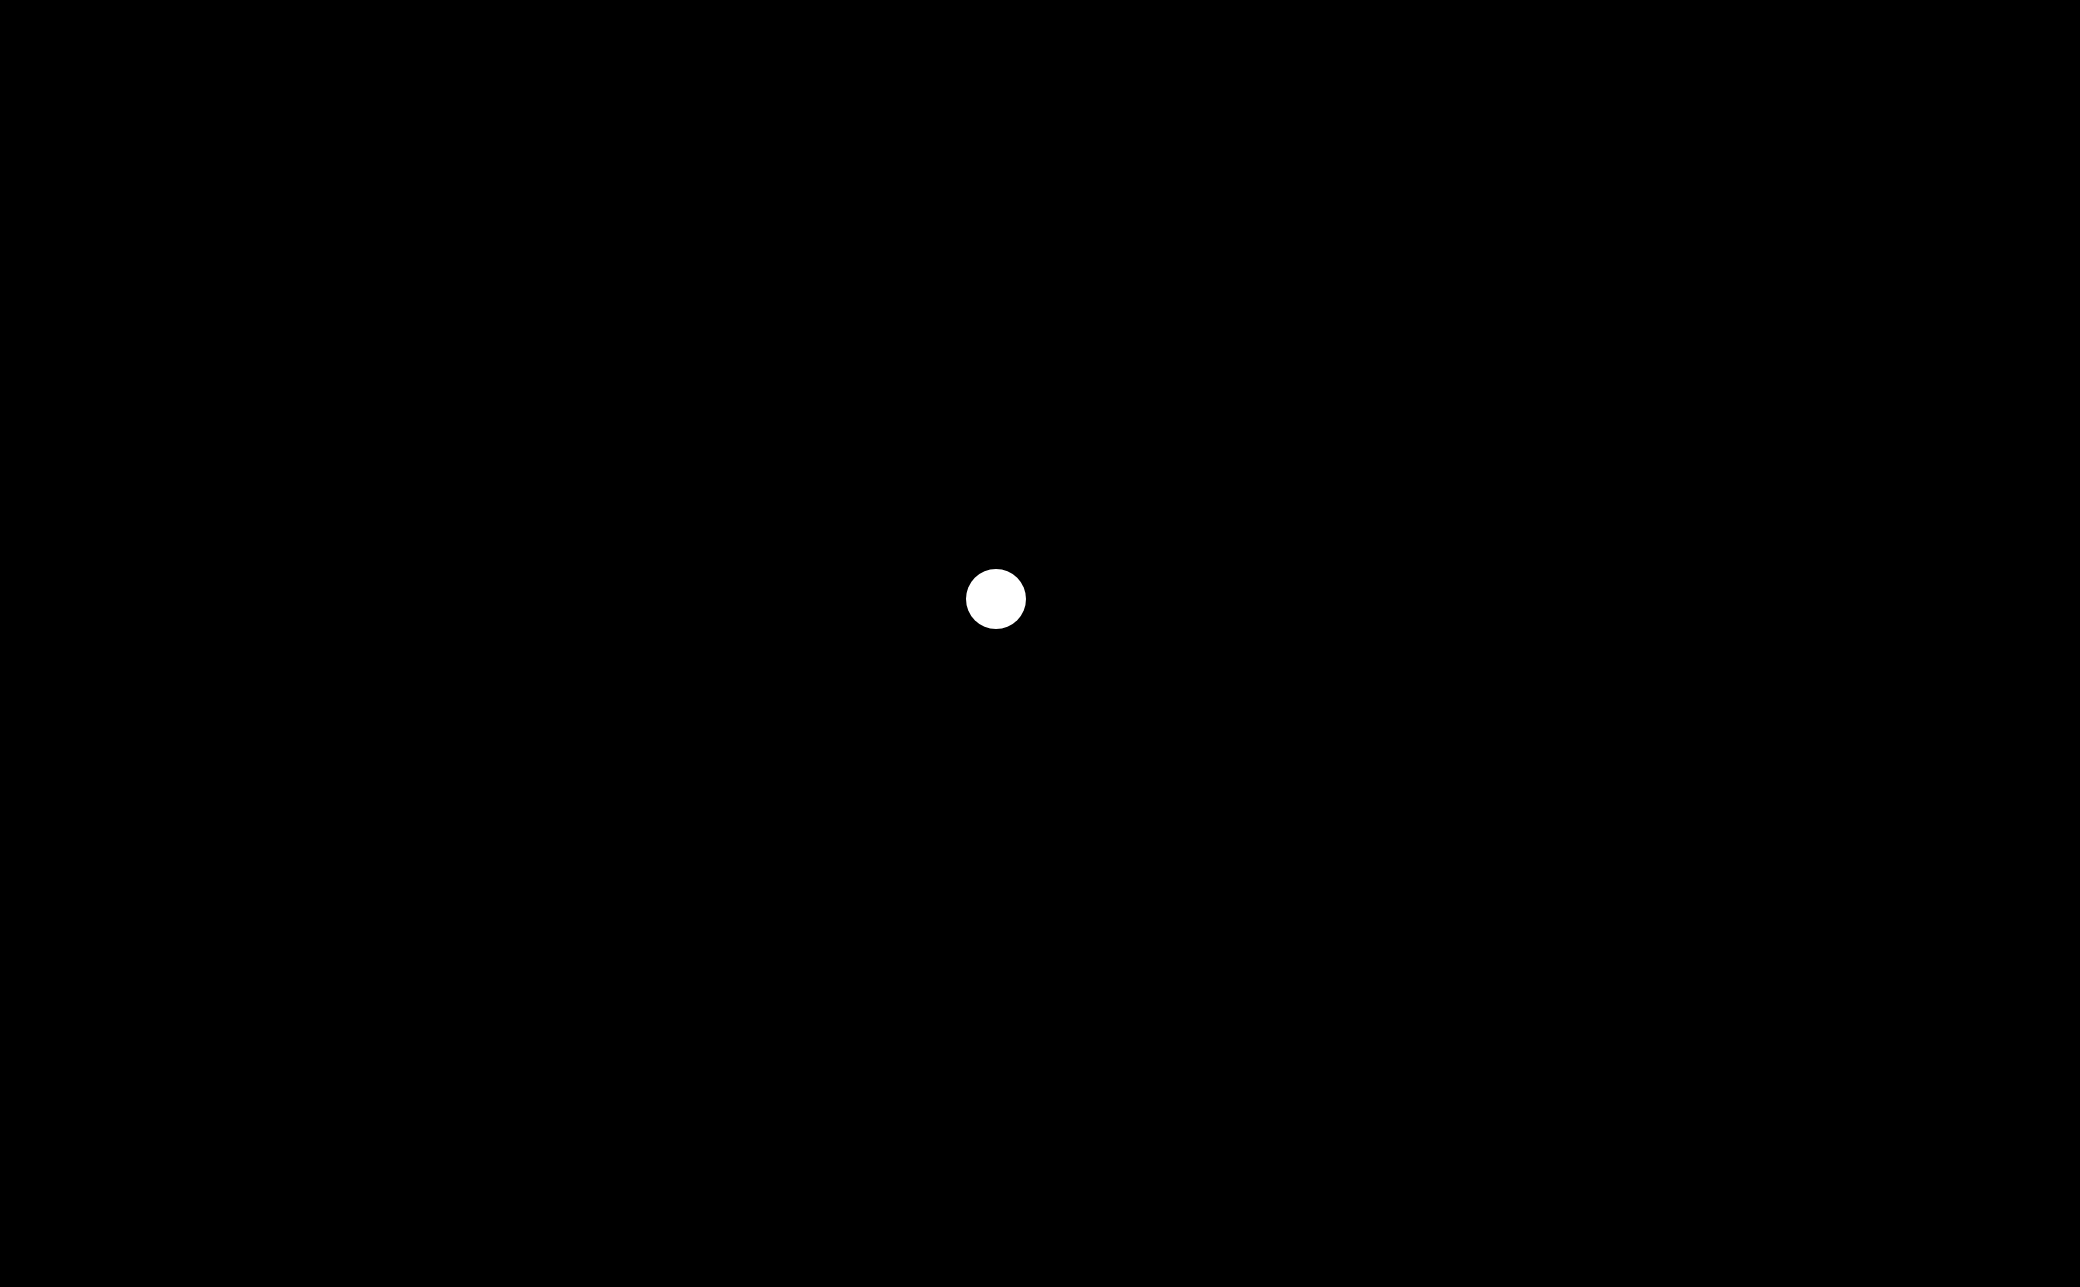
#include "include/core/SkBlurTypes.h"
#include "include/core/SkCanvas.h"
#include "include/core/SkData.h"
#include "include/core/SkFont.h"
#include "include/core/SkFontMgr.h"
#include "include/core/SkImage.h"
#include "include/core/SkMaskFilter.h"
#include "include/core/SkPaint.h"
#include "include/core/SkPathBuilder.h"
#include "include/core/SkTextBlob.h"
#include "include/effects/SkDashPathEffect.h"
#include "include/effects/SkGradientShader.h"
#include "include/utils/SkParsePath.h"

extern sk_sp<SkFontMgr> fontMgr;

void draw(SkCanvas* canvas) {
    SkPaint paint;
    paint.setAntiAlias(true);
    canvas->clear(0xFF000000);
    paint.setColor(0xFFFFFFFF);
    canvas->drawCircle(996, 599, 30, paint);
}
